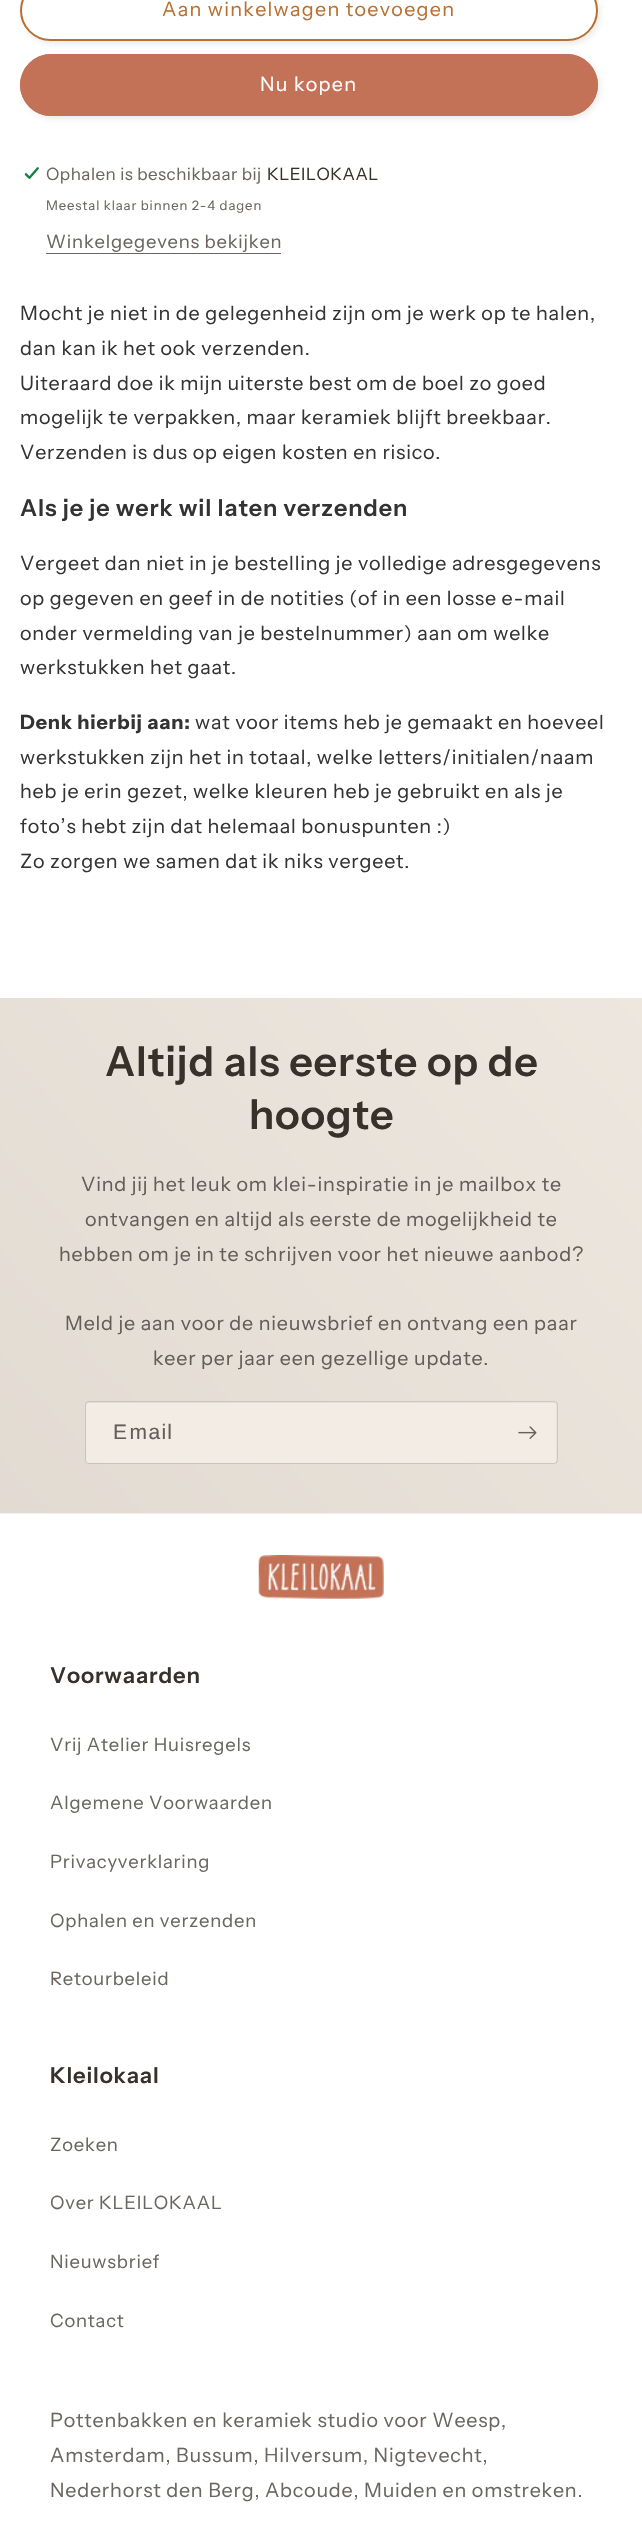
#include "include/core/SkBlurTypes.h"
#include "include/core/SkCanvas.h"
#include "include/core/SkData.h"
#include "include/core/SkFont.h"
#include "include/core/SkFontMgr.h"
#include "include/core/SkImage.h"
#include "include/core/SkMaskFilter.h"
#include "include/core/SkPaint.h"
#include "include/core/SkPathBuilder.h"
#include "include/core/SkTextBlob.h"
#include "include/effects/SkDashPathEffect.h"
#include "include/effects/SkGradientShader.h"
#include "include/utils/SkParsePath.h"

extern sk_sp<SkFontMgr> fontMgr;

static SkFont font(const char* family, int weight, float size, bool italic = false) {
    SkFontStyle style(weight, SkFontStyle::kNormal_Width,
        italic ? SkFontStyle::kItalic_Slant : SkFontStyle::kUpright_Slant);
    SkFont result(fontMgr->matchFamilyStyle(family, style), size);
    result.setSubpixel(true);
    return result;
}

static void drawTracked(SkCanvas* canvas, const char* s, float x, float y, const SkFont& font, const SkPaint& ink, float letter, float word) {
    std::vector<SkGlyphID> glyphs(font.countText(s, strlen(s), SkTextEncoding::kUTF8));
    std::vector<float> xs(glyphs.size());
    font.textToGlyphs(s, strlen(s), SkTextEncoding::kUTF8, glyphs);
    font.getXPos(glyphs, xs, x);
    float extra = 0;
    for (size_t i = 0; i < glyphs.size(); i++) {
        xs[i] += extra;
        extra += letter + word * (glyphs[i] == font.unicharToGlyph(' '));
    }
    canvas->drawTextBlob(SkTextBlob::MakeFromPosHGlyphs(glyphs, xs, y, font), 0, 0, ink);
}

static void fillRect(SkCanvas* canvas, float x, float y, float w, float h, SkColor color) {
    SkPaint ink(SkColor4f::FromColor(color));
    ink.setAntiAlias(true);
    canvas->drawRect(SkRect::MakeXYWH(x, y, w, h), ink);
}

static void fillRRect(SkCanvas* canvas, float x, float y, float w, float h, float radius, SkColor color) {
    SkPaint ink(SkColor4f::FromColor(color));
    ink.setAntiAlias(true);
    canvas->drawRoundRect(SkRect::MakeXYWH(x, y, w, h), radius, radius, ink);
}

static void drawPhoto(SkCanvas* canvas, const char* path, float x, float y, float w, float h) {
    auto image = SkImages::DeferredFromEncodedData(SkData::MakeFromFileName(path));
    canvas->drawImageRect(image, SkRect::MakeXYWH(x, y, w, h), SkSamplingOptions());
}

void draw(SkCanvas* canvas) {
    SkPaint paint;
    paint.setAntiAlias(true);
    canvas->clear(0xFFFFFFFF);
    paint.setColor(0x1A38312B);
    paint.setMaskFilter(SkMaskFilter::MakeBlur(kNormal_SkBlurStyle, 3));
    canvas->drawRoundRect(SkRect::MakeXYWH(23, -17, 577, 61), 30.5f, 30.5f, paint);
    paint.setMaskFilter(nullptr);
    fillRRect(canvas, 20, -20, 578, 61, 30.5f, 0xFFFFFFFF);
    paint.setStroke(true);
    paint.setStrokeWidth(1);
    paint.setColor(0xFFFFFFFF);
    canvas->drawRoundRect(SkRect::MakeXYWH(20.5f, -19.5f, 577, 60), 30, 30, paint);
    paint.setStrokeWidth(2);
    paint.setColor(0xFFB96F2F);
    canvas->drawRoundRect(SkRect::MakeXYWH(21, -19, 576, 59), 29.5f, 29.5f, paint);
    SkFont font1 = font("Instrument Sans", 400, 19.7f);
    paint.setStroke(false);
    drawTracked(canvas, "Aan winkelwagen toevoegen", 162, 16, font1, paint, 1.3f, 0);
    paint.setColor(0x1A38312B);
    paint.setMaskFilter(SkMaskFilter::MakeBlur(kNormal_SkBlurStyle, 3));
    canvas->drawRoundRect(SkRect::MakeXYWH(23, 56, 577, 63), 31.5f, 31.5f, paint);
    paint.setMaskFilter(nullptr);
    fillRRect(canvas, 20, 54, 578, 62, 31, 0xFFC47257);
    paint.setStroke(true);
    paint.setStrokeWidth(1);
    paint.setColor(0xFFC47257);
    canvas->drawRoundRect(SkRect::MakeXYWH(20.5f, 54.5f, 577, 61), 30.5f, 30.5f, paint);
    paint.setStroke(false);
    paint.setColor(0xFFFFFFFF);
    drawTracked(canvas, "Nu kopen", 260, 91, font1, paint, 1.3f, 0);
    drawPhoto(canvas, "assets/img1.png", 24, 166, 16, 14);
    SkFont font2 = font("Instrument Sans", 400, 17);
    paint.setColor(0xFF6A6560);
    drawTracked(canvas, "Ophalen is beschikbaar bij", 46, 180, font2, paint, 0.5f, 0);
    paint.setColor(0xFF38312B);
    drawTracked(canvas, "KLEILOKAAL", 267, 180, font2, paint, 0.5f, 0);
    SkFont font3 = font("Instrument Sans", 400, 13.1f);
    paint.setColor(0xFF6A6560);
    drawTracked(canvas, "Meestal klaar binnen 2-4 dagen", 46, 210, font3, paint, 0.9f, 0);
    SkFont font4 = font("Instrument Sans", 400, 18.4f);
    drawTracked(canvas, "Winkelgegevens bekijken", 46, 248, font4, paint, 0.8f, 0);
    fillRect(canvas, 46, 253, 235, 1, 0xFF6A6560);
    paint.setColor(0xFF333333);
    drawTracked(canvas, "Mocht je niet in de gelegenheid zijn om je werk op te halen,", 20, 320, font1, paint, 0.8f, 0);
    drawTracked(canvas, "dan kan ik het ook verzenden.", 20, 355, font1, paint, 0.8f, 0);
    drawTracked(canvas, "Uiteraard doe ik mijn uiterste best om de boel zo goed", 20, 390, font1, paint, 0.8f, 0);
    drawTracked(canvas, "mogelijk te verpakken, maar keramiek blijft breekbaar.", 20, 424, font1, paint, 0.8f, 0);
    drawTracked(canvas, "Verzenden is dus op eigen kosten en risico.", 20, 459, font1, paint, 0.8f, 0);
    SkFont font5 = font("Instrument Sans", 600, 23.4f);
    drawTracked(canvas, "Als je je werk wil laten verzenden", 20, 516, font5, paint, 0.85f, 0);
    drawTracked(canvas, "Vergeet dan niet in je bestelling je volledige adresgegevens", 20, 570, font1, paint, 0.8f, 0);
    drawTracked(canvas, "op gegeven en geef in de notities (of in een losse e-mail", 20, 605, font1, paint, 0.8f, 0);
    drawTracked(canvas, "onder vermelding van je bestelnummer) aan om welke", 20, 640, font1, paint, 0.8f, 0);
    drawTracked(canvas, "werkstukken het gaat.", 20, 674, font1, paint, 0.8f, 0);
    SkFont font6 = font("Instrument Sans", 700, 19.7f);
    drawTracked(canvas, "Denk hierbij aan:", 20, 729, font6, paint, 0.8f, 0);
    drawTracked(canvas, "wat voor items heb je gemaakt en hoeveel", 195, 729, font1, paint, 0.8f, 0);
    drawTracked(canvas, "werkstukken zijn het in totaal, welke letters/initialen/naam", 20, 764, font1, paint, 0.8f, 0);
    drawTracked(canvas, "heb je erin gezet, welke kleuren heb je gebruikt en als je", 20, 798, font1, paint, 0.8f, 0);
    drawTracked(canvas, "foto’s hebt zijn dat helemaal bonuspunten :)", 20, 833, font1, paint, 0.8f, 0);
    drawTracked(canvas, "Zo zorgen we samen dat ik niks vergeet.", 20, 868, font1, paint, 0.8f, 0);
    {
        const SkColor colors[] = {0xFFF2ECE4, 0xFFDED6CD};
        const float stops[] = {0.14f, 0.84f};
        const SkPoint ends[] = {{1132, 544}, {-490, 2005}};
        paint.setShader(SkGradientShader::MakeLinear(ends, colors, stops, 2, SkTileMode::kClamp));
        paint.setAlpha(255);
    }
    canvas->drawRect(SkRect::MakeXYWH(0, 998, 642, 515), paint);
    SkFont font7 = font("Instrument Sans", 600, 41.25f);
    paint.setShader(nullptr);
    paint.setColor(0xFF38312B);
    drawTracked(canvas, "Altijd als eerste op de", 105, 1076, font7, paint, 0.85f, 0);
    drawTracked(canvas, "hoogte", 249, 1129, font7, paint, 0.85f, 0);
    paint.setColor(0xFF645D57);
    drawTracked(canvas, "Vind jij het leuk om klei-inspiratie in je mailbox te", 81, 1191, font1, paint, 0.8f, 0);
    drawTracked(canvas, "ontvangen en altijd als eerste de mogelijkheid te", 85, 1226, font1, paint, 0.8f, 0);
    drawTracked(canvas, "hebben om je in te schrijven voor het nieuwe aanbod?", 59, 1261, font1, paint, 0.8f, 0);
    drawTracked(canvas, "Meld je aan voor de nieuwsbrief en ontvang een paar", 65, 1330, font1, paint, 0.8f, 0);
    drawTracked(canvas, "keer per jaar een gezellige update.", 153, 1365, font1, paint, 0.8f, 0);
    fillRRect(canvas, 86, 1403, 470, 60, 2.5f, 0xFFF2ECE4);
    paint.setStroke(true);
    paint.setColor(0x2638312B);
    canvas->drawRoundRect(SkRect::MakeXYWH(85.5f, 1401.5f, 472, 62), 3.5f, 3.5f, paint);
    SkFont font8 = font("Liberation Sans", 400, 21);
    paint.setStroke(false);
    paint.setColor(0xFF645D57);
    drawTracked(canvas, "E‑mail", 113, 1439, font8, paint, 1.3f, 0);
    drawPhoto(canvas, "assets/img2.png", 518, 1426, 19, 13);
    fillRect(canvas, 0, 1513, 642, 1, 0xFFEFEFEE);
    drawPhoto(canvas, "assets/img3.png", 258, 1555, 126, 44);
    SkFont font9 = font("Instrument Sans", 600, 22);
    paint.setColor(0xFF38312B);
    drawTracked(canvas, "Voorwaarden", 50, 1683, font9, paint, 0.85f, 0);
    paint.setColor(0xFF6A6560);
    drawTracked(canvas, "Vrij Atelier Huisregels", 50, 1751, font4, paint, 0.8f, 0);
    drawTracked(canvas, "Algemene Voorwaarden", 50, 1809, font4, paint, 0.8f, 0);
    drawTracked(canvas, "Privacyverklaring", 50, 1868, font4, paint, 0.8f, 0);
    drawTracked(canvas, "Ophalen en verzenden", 50, 1927, font4, paint, 0.8f, 0);
    drawTracked(canvas, "Retourbeleid", 50, 1985, font4, paint, 0.8f, 0);
    paint.setColor(0xFF38312B);
    drawTracked(canvas, "Kleilokaal", 50, 2083, font9, paint, 0.85f, 0);
    paint.setColor(0xFF6A6560);
    drawTracked(canvas, "Zoeken", 50, 2151, font4, paint, 0.8f, 0);
    drawTracked(canvas, "Over KLEILOKAAL", 50, 2209, font4, paint, 0.8f, 0);
    drawTracked(canvas, "Nieuwsbrief", 50, 2268, font4, paint, 0.8f, 0);
    drawTracked(canvas, "Contact", 50, 2327, font4, paint, 0.8f, 0);
    drawTracked(canvas, "Pottenbakken en keramiek studio voor Weesp,", 50, 2427, font1, paint, 0.8f, 0);
    drawTracked(canvas, "Amsterdam, Bussum, Hilversum, Nigtevecht,", 50, 2462, font1, paint, 0.8f, 0);
    drawTracked(canvas, "Nederhorst den Berg, Abcoude, Muiden en omstreken.", 50, 2497, font1, paint, 0.8f, 0);
}
